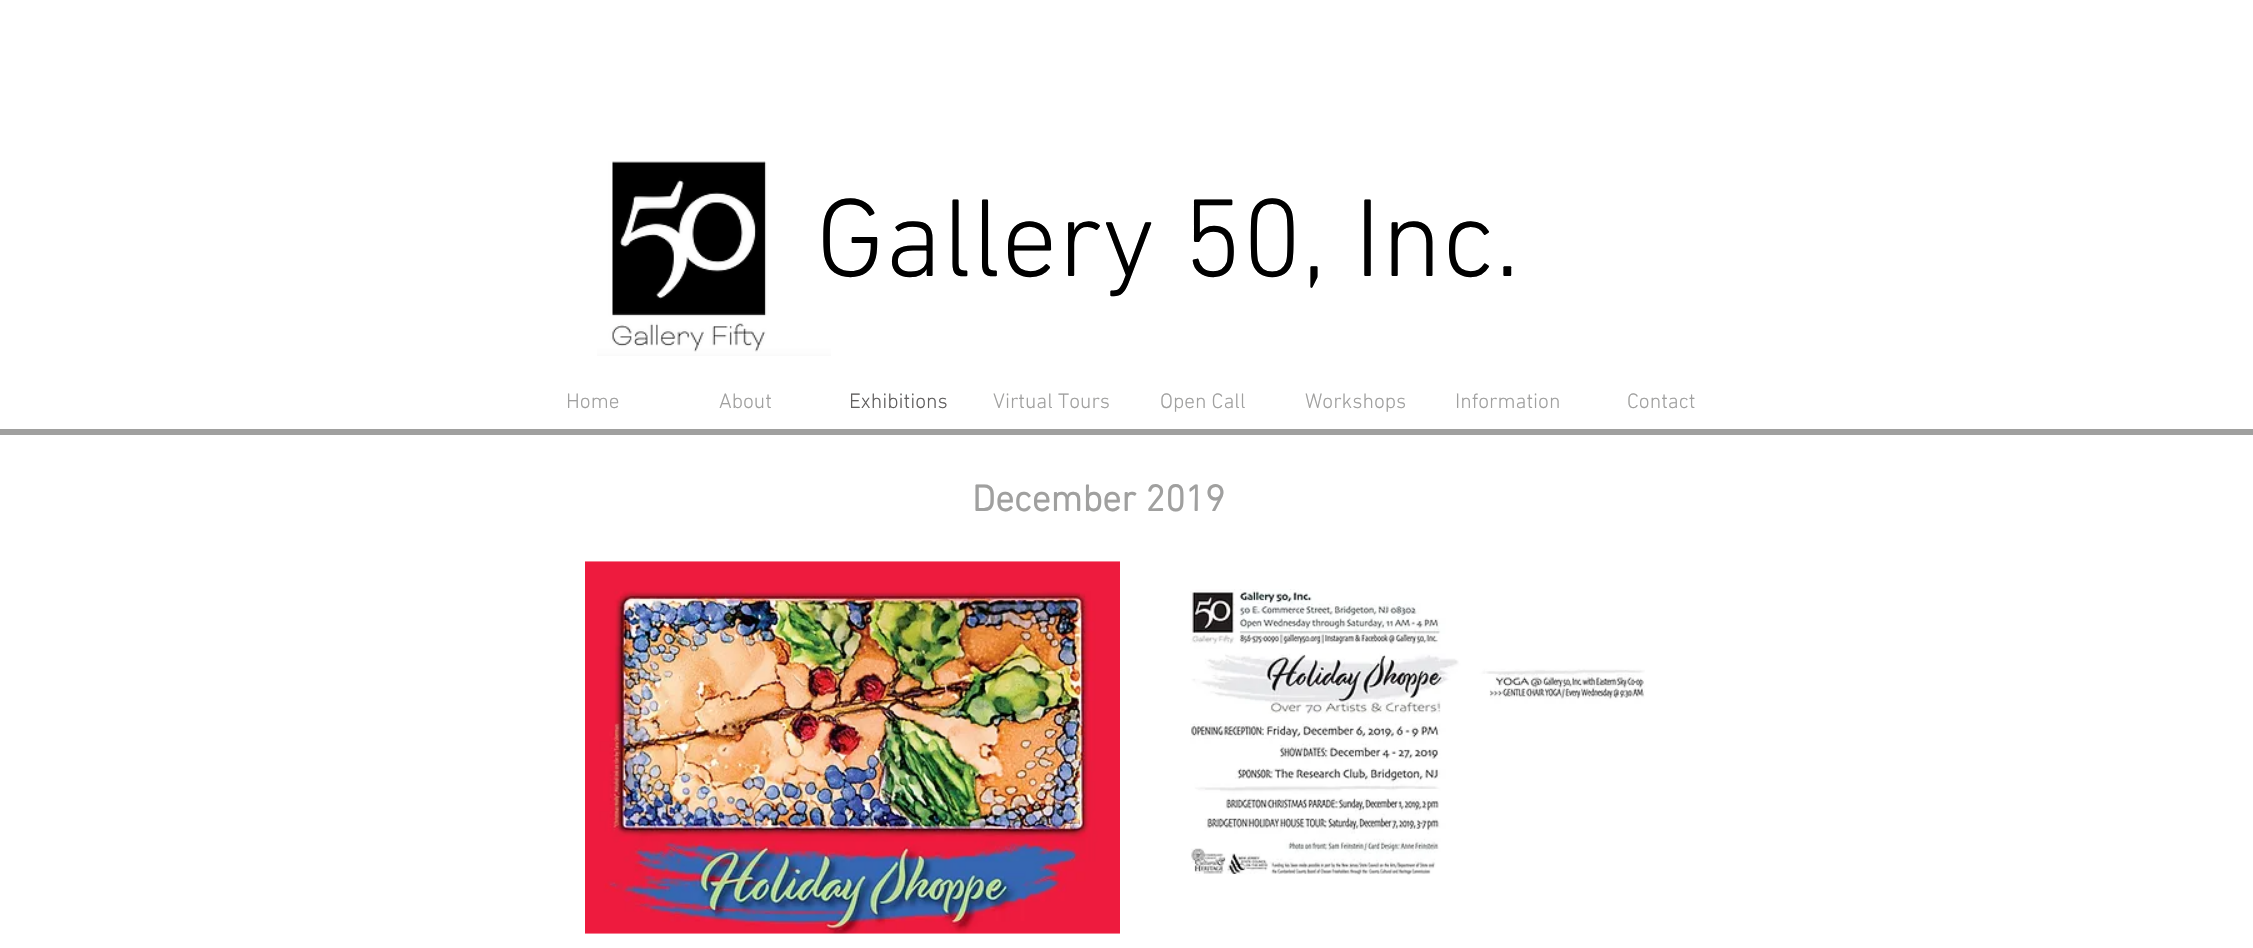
#include "include/core/SkBlurTypes.h"
#include "include/core/SkCanvas.h"
#include "include/core/SkData.h"
#include "include/core/SkFont.h"
#include "include/core/SkFontMgr.h"
#include "include/core/SkImage.h"
#include "include/core/SkMaskFilter.h"
#include "include/core/SkPaint.h"
#include "include/core/SkPathBuilder.h"
#include "include/core/SkTextBlob.h"
#include "include/effects/SkDashPathEffect.h"
#include "include/effects/SkGradientShader.h"
#include "include/utils/SkParsePath.h"

extern sk_sp<SkFontMgr> fontMgr;

static SkFont font(const char* family, int weight, float size, bool italic = false) {
    SkFontStyle style(weight, SkFontStyle::kNormal_Width,
        italic ? SkFontStyle::kItalic_Slant : SkFontStyle::kUpright_Slant);
    SkFont result(fontMgr->matchFamilyStyle(family, style), size);
    result.setSubpixel(true);
    return result;
}

static void drawLabel(SkCanvas* canvas, const char* s, float x, float y, const SkFont& font, SkColor color) {
    SkPaint ink(SkColor4f::FromColor(color));
    ink.setAntiAlias(true);
    canvas->drawString(s, x, y, font, ink);
}

static void fillRect(SkCanvas* canvas, float x, float y, float w, float h, SkColor color) {
    SkPaint ink(SkColor4f::FromColor(color));
    ink.setAntiAlias(true);
    canvas->drawRect(SkRect::MakeXYWH(x, y, w, h), ink);
}

static void drawPhoto(SkCanvas* canvas, const char* path, float x, float y, float w, float h) {
    auto image = SkImages::DeferredFromEncodedData(SkData::MakeFromFileName(path));
    canvas->drawImageRect(image, SkRect::MakeXYWH(x, y, w, h), SkSamplingOptions());
}

void draw(SkCanvas* canvas) {
    SkPaint paint;
    paint.setAntiAlias(true);
    canvas->clear(0xFFFFFFFF);
    drawPhoto(canvas, "assets/img1.png", 597, 161, 234, 195);
    SkFont font1 = font("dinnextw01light", 300, 112.5f);
    drawLabel(canvas, "Gallery 50, Inc.", 816, 276, font1, 0xFF000000);
    SkFont font2 = font("dinnextw01light", 300, 21.25f);
    drawLabel(canvas, "Home", 566, 408, font2, 0xFFA0A09F);
    drawLabel(canvas, "About", 719, 408, font2, 0xFFA0A09F);
    drawLabel(canvas, "Exhibitions", 849, 408, font2, 0xFF605E5E);
    drawLabel(canvas, "Virtual Tours", 993, 408, font2, 0xFFA0A09F);
    drawLabel(canvas, "Open Call", 1160, 408, font2, 0xFFA0A09F);
    drawLabel(canvas, "Workshops", 1305, 408, font2, 0xFFA0A09F);
    drawLabel(canvas, "Information", 1455, 408, font2, 0xFFA0A09F);
    drawLabel(canvas, "Contact", 1627, 408, font2, 0xFFA0A09F);
    fillRect(canvas, 0, 429, 2253, 6, 0xFFA0A09F);
    SkFont font3 = font("dinnextw01light", 700, 37.5f);
    drawLabel(canvas, "December 2019", 972, 511, font3, 0xFFA0A09F);
    drawPhoto(canvas, "assets/img2.png", 585, 561, 535, 373);
    drawPhoto(canvas, "assets/img3.png", 1190, 589, 455, 286);
}
